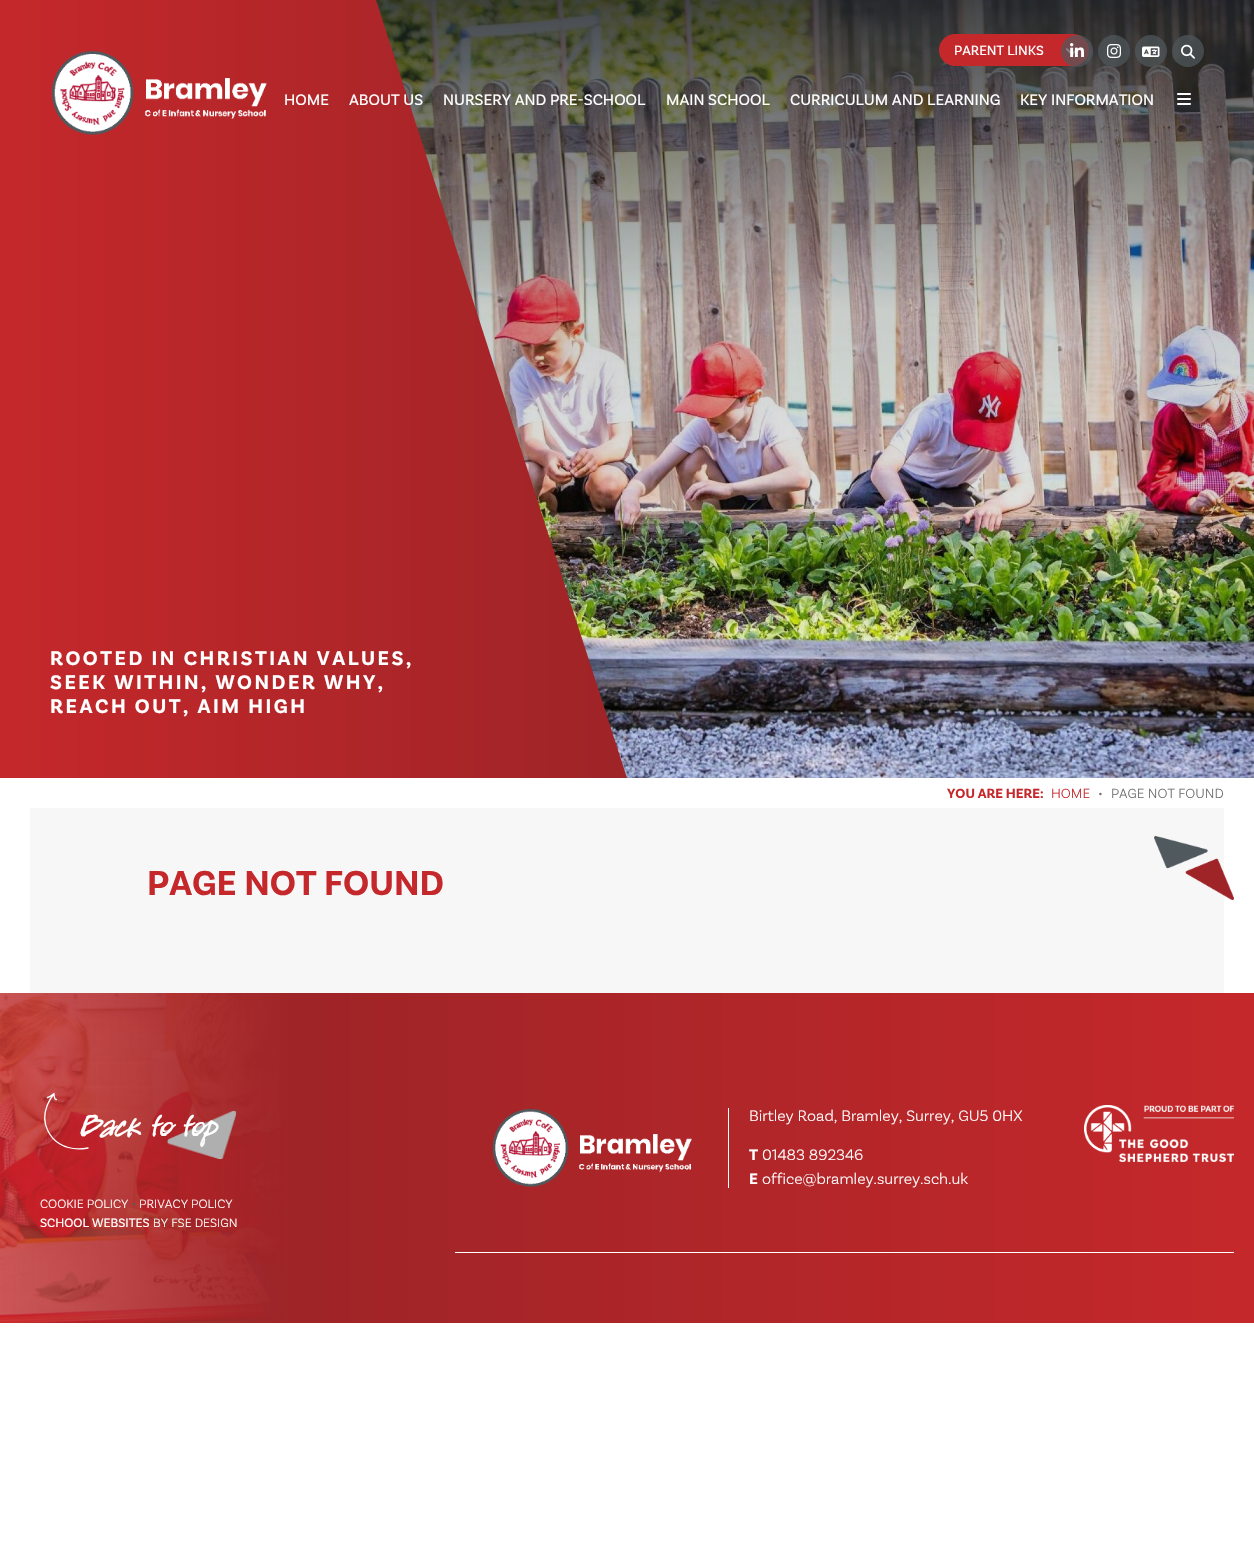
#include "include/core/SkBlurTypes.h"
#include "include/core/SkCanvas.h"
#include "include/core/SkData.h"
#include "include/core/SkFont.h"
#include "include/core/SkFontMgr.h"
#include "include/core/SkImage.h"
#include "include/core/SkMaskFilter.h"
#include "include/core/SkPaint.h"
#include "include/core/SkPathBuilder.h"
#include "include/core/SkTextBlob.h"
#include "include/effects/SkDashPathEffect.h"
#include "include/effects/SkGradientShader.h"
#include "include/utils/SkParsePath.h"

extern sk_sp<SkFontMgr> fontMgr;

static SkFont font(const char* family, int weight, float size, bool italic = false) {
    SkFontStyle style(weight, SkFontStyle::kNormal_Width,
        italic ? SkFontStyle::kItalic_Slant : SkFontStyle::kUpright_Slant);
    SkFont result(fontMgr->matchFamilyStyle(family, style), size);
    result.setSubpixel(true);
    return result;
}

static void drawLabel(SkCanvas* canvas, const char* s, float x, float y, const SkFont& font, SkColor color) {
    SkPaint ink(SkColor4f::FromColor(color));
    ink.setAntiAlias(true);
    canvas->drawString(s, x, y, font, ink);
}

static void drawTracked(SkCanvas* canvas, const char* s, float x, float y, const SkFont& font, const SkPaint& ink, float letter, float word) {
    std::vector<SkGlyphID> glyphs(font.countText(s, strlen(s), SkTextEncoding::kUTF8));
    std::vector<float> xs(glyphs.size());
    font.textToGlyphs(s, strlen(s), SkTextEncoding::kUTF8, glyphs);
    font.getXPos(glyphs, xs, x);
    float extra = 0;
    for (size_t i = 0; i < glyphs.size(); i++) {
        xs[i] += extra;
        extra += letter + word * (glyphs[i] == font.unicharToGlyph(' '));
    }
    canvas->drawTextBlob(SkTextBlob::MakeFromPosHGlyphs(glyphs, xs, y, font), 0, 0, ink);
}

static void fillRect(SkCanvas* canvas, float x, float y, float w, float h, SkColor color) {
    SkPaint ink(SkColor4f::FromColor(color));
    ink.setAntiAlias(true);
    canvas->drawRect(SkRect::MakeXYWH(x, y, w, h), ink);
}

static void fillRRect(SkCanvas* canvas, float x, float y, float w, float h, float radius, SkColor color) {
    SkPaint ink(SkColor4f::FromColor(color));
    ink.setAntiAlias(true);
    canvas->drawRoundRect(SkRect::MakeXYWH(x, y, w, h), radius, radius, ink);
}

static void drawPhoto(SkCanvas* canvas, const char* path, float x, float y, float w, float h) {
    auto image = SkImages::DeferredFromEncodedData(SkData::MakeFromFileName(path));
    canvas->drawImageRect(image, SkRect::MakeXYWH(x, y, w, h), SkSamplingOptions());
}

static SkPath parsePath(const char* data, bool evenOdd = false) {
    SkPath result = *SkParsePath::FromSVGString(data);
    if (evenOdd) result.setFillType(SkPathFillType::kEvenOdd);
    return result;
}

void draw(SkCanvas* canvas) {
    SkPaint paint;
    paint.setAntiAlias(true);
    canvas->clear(0xFFFFFFFF);
    drawPhoto(canvas, "assets/img8.png", 376, 0, 878, 778);
    {
        const SkColor colors[] = {0xCC12171F, 0x3312171F, 0x0012171F};
        const float stops[] = {0, 0.4f, 1};
        const SkPoint ends[] = {{627, 0}, {627, 778}};
        paint.setShader(SkGradientShader::MakeLinear(ends, colors, stops, 3, SkTileMode::kClamp));
        paint.setAlpha(255);
    }
    canvas->drawRect(SkRect::MakeXYWH(376, 0, 878, 728), paint);
    fillRRect(canvas, 939, 34, 150, 32, 16, 0xFFC5282B);
    SkFont font1 = font("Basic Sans", 400, 14);
    drawLabel(canvas, "PARENT LINKS", 954, 55, font1, 0xFFFFFFFF);
    drawPhoto(canvas, "assets/img1.png", 1066, 48, 12, 7);
    paint.setShader(nullptr);
    paint.setColor(0xB350595D);
    canvas->drawCircle(1077, 51, 16, paint);
    drawPhoto(canvas, "assets/img2.png", 1070, 43, 14, 14);
    canvas->drawCircle(1114, 51, 16, paint);
    drawPhoto(canvas, "assets/img3.png", 1107, 44, 14, 14);
    canvas->drawCircle(1151, 51, 16, paint);
    drawPhoto(canvas, "assets/img4.png", 1142, 46, 18, 11);
    canvas->drawCircle(1188, 51, 16, paint);
    drawPhoto(canvas, "assets/img5.png", 1181, 44, 14, 15);
    {
        const SkColor colors[] = {0xFFC5282B, 0xFF9E2427};
        const float stops[] = {0, 1};
        const SkPoint ends[] = {{0, 389}, {627, 389}};
        paint.setShader(SkGradientShader::MakeLinear(ends, colors, stops, 2, SkTileMode::kClamp));
        paint.setAlpha(255);
    }
    canvas->drawPath(parsePath("M0 0V778H627L376 0Z"), paint);
    drawPhoto(canvas, "assets/img6.png", 51, 50, 216, 85);
    SkFont font2 = font("Basic Sans", 400, 16);
    drawLabel(canvas, "HOME", 284, 105, font2, 0xFFFFFFFF);
    drawLabel(canvas, "ABOUT US", 349, 105, font2, 0xFFFFFFFF);
    drawLabel(canvas, "NURSERY AND PRE-SCHOOL", 443, 105, font2, 0xFFFFFFFF);
    drawLabel(canvas, "MAIN SCHOOL", 666, 105, font2, 0xFFFFFFFF);
    drawLabel(canvas, "CURRICULUM AND LEARNING", 790, 105, font2, 0xFFFFFFFF);
    drawLabel(canvas, "KEY INFORMATION", 1020, 105, font2, 0xFFFFFFFF);
    drawPhoto(canvas, "assets/img7.png", 1177, 93, 14, 12);
    SkFont font3 = font("Basic Sans", 700, 20.75f);
    paint.setShader(nullptr);
    paint.setColor(0xFFFFFFFF);
    drawTracked(canvas, "ROOTED IN CHRISTIAN VALUES,", 50, 665, font3, paint, 2.5f, 0);
    drawTracked(canvas, "SEEK WITHIN, WONDER WHY,", 50, 689, font3, paint, 2.5f, 0);
    drawTracked(canvas, "REACH OUT, AIM HIGH", 50, 713, font3, paint, 2.5f, 0);
    fillRect(canvas, 30, 808, 1194, 185, 0xFFF7F7F8);
    SkFont font4 = font("Basic Sans", 700, 14);
    drawLabel(canvas, "YOU ARE HERE:", 947, 798, font4, 0xFFC5282B);
    SkFont font5 = font("Basic Sans", 300, 14);
    drawLabel(canvas, "HOME", 1051, 798, font5, 0xFFC5282B);
    drawLabel(canvas, "•", 1098, 798, font5, 0xFF706F6F);
    drawLabel(canvas, "PAGE NOT FOUND", 1111, 798, font5, 0xFF706F6F);
    SkFont font6 = font("Basic Sans", 700, 36.5f);
    drawLabel(canvas, "PAGE NOT FOUND", 147, 895, font6, 0xFFC5282B);
    drawPhoto(canvas, "assets/img9.png", 1154, 836, 80, 64);
    fillRect(canvas, 0, 993, 287, 330, 0xFFC5282B);
    drawPhoto(canvas, "assets/img10.png", 0, 993, 287, 330);
    {
        const SkColor colors[] = {0x1A9E2427, 0xFF9E2427, 0xFFC5282B};
        const float stops[] = {0, 0.23f, 1};
        const SkPoint ends[] = {{0, 1158}, {1254, 1158}};
        paint.setShader(SkGradientShader::MakeLinear(ends, colors, stops, 3, SkTileMode::kClamp));
        paint.setAlpha(255);
    }
    canvas->drawRect(SkRect::MakeXYWH(0, 993, 1254, 330), paint);
    paint.setStroke(true);
    paint.setStrokeWidth(1.3f);
    paint.setStrokeCap(SkPaint::kRound_Cap);
    paint.setStrokeJoin(SkPaint::kRound_Join);
    paint.setShader(nullptr);
    paint.setColor(0xFFFFFFFF);
    canvas->drawPath(parsePath("M88 1148C62 1152.5 51.5 1138 48 1131C38 1111.5 54 1094 54 1094C52 1095.5 50 1097 47.5 1097.5C50 1097 52 1095 54 1093.5C54 1093.5 54 1100 56.5 1099.5"), paint);
    drawPhoto(canvas, "assets/img11.png", 167, 1110, 70, 50);
    SkFont font7 = font("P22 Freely", 400, 34);
    drawLabel(canvas, "Back to top", 80, 1136, font7, 0xFFFFFFFF);
    SkFont font8 = font("Basic Sans", 300, 12.75f);
    drawLabel(canvas, "COOKIE POLICY", 40, 1208, font8, 0xFFFFFFFF);
    drawLabel(canvas, "•", 132, 1208, font8, 0xFF50595D);
    drawLabel(canvas, "PRIVACY POLICY", 139, 1208, font8, 0xFFFFFFFF);
    SkFont font9 = font("Basic Sans", 400, 12.75f);
    drawLabel(canvas, "SCHOOL WEBSITES", 40, 1227, font9, 0xFFFFFFFF);
    drawLabel(canvas, "BY FSE DESIGN", 153, 1227, font8, 0xFFFFFFFF);
    drawPhoto(canvas, "assets/img12.png", 492, 1108, 200, 79);
    fillRect(canvas, 728, 1108, 1, 80, 0xFFFFFFFF);
    SkFont font10 = font("Basic Sans", 300, 16);
    drawLabel(canvas, "Birtley Road, Bramley, Surrey, GU5 0HX", 749, 1121, font10, 0xFFFFFFFF);
    SkFont font11 = font("Basic Sans", 700, 16);
    drawLabel(canvas, "T", 749, 1160, font11, 0xFFFFFFFF);
    drawLabel(canvas, "01483 892346", 762, 1160, font10, 0xFFFFFFFF);
    drawLabel(canvas, "E", 749, 1184, font11, 0xFFFFFFFF);
    drawLabel(canvas, "office@bramley.surrey.sch.uk", 762, 1184, font10, 0xFFFFFFFF);
    drawPhoto(canvas, "assets/img13.png", 1084, 1105, 150, 57);
    fillRect(canvas, 455, 1252, 779, 1, 0xFFFFFFFF);
}
